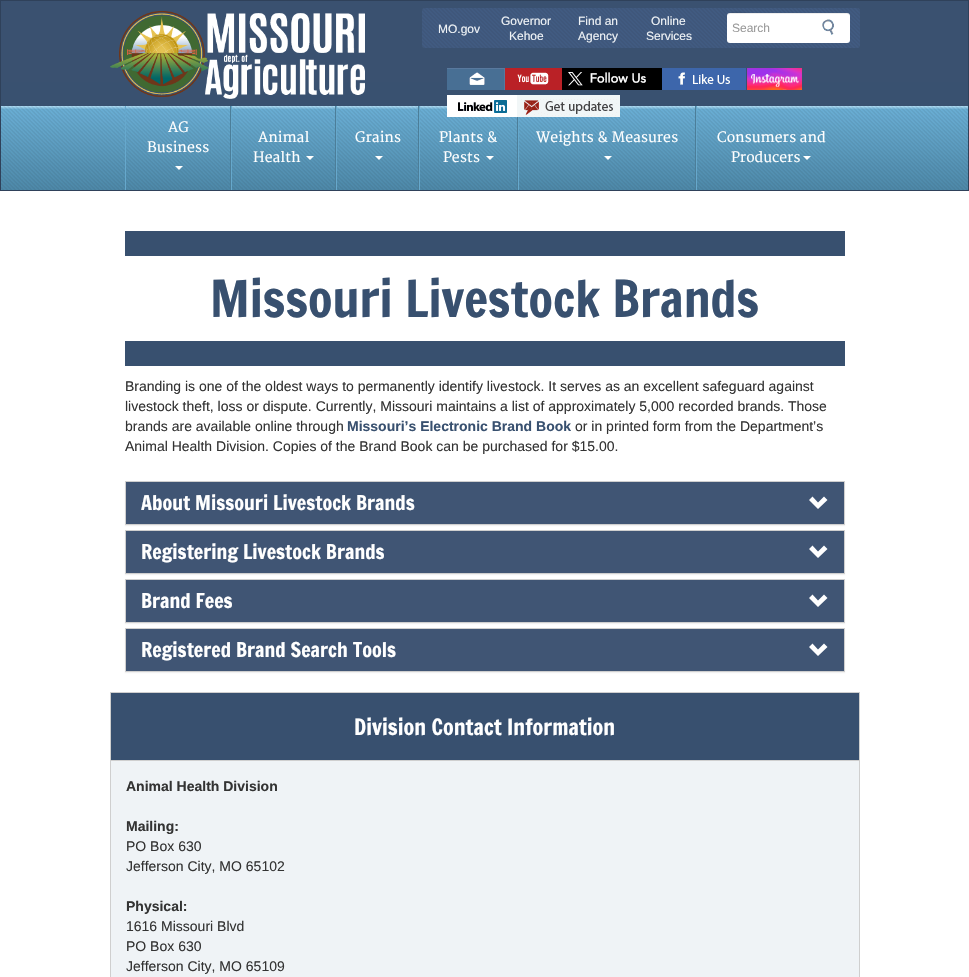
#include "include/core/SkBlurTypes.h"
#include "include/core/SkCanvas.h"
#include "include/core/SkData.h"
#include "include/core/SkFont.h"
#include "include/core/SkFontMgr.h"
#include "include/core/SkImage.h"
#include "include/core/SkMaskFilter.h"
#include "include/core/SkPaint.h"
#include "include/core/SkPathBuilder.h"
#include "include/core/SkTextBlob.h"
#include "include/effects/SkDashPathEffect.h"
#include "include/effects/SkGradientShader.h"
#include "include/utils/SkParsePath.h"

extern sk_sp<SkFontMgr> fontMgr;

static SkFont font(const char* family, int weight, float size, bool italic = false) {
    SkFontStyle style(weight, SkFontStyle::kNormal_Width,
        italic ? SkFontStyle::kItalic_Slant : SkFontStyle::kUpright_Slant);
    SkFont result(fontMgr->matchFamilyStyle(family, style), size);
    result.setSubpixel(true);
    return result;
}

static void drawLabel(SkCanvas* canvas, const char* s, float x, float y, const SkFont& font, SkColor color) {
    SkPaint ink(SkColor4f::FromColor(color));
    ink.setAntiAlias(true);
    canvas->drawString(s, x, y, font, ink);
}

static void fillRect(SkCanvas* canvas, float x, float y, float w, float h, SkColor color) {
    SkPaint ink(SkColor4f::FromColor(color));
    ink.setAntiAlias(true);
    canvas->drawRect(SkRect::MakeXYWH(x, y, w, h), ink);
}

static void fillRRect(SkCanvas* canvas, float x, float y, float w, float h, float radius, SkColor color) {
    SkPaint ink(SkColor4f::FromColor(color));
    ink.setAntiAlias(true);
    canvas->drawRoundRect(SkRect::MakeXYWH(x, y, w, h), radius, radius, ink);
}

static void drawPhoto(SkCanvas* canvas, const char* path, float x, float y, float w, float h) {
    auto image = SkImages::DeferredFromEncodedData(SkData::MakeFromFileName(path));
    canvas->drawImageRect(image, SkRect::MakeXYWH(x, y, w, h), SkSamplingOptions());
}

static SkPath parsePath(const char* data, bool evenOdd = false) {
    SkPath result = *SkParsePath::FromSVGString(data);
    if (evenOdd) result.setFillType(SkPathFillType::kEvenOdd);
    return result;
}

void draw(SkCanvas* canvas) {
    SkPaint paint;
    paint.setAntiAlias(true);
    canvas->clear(0xFFFFFFFF);
    {
        const SkColor colors[] = {0xFF3A5170, 0xFF3A5170, 0xFF38506F};
        const float stops[] = {0, 0.24f, 1};
        const SkPoint ends[] = {{485, 1}, {485, 190}};
        paint.setShader(SkGradientShader::MakeLinear(ends, colors, stops, 3, SkTileMode::kClamp));
        paint.setAlpha(255);
    }
    canvas->drawRect(SkRect::MakeXYWH(1, 1, 967, 105), paint);
    paint.setStroke(true);
    paint.setStrokeWidth(1);
    paint.setShader(nullptr);
    paint.setColor(0xFF2F415A);
    canvas->drawRect(SkRect::MakeXYWH(0.5f, 0.5f, 968, 190), paint);
    drawPhoto(canvas, "assets/img1.png", 110, 11, 255, 88);
    fillRRect(canvas, 422, 8, 438, 40, 3, 0xFF415B81);
    drawPhoto(canvas, "assets/img2.png", 422, 8, 438, 40);
    SkFont font1 = font("Liberation Sans", 400, 12);
    drawLabel(canvas, "MO.gov", 438, 33, font1, 0xFFEFF3F6);
    drawLabel(canvas, "Governor", 501, 25, font1, 0xFFEFF3F6);
    drawLabel(canvas, "Kehoe", 509, 40, font1, 0xFFEFF3F6);
    drawLabel(canvas, "Find an", 578, 25, font1, 0xFFEFF3F6);
    drawLabel(canvas, "Agency", 578, 40, font1, 0xFFEFF3F6);
    drawLabel(canvas, "Online", 651, 25, font1, 0xFFEFF3F6);
    drawLabel(canvas, "Services", 646, 40, font1, 0xFFEFF3F6);
    fillRRect(canvas, 727, 13, 123, 30, 3, 0xFFFFFFFF);
    paint.setStroke(false);
    paint.setColor(0x12000000);
    canvas->drawPath(parsePath("M730 14H847C849 14 850 15 850 17C850 15 849 13 847 13H750C749 13 727 8 727 17C727 15 728 14 730 14Z"), paint);
    drawLabel(canvas, "Search", 732, 32, font1, 0xFF999999);
    drawPhoto(canvas, "assets/img3.png", 822, 19, 12, 16);
    drawPhoto(canvas, "assets/img4.png", 447, 68, 58, 22);
    drawPhoto(canvas, "assets/img5.png", 505, 68, 57, 22);
    drawPhoto(canvas, "assets/img6.png", 562, 68, 100, 22);
    drawPhoto(canvas, "assets/img7.png", 662, 68, 84, 22);
    drawPhoto(canvas, "assets/img8.png", 747, 68, 55, 22);
    drawPhoto(canvas, "assets/img11.png", 1, 106, 967, 84);
    drawPhoto(canvas, "assets/img9.png", 447, 95, 70, 22);
    drawPhoto(canvas, "assets/img10.png", 517, 95, 103, 22);
    fillRect(canvas, 230, 106, 1, 84, 0xFF4C7E99);
    fillRect(canvas, 125, 106, 1, 84, 0xFF66A8CC);
    SkFont font2 = font("Merriweather", 200, 14);
    drawLabel(canvas, "AG", 168, 132, font2, 0xFFFFFFFF);
    drawLabel(canvas, "Business", 147, 152, font2, 0xFFFFFFFF);
    paint.setColor(0xFFFFFFFF);
    canvas->drawPath(parsePath("M175 166H183L179 170Z"), paint);
    fillRect(canvas, 335, 106, 1, 84, 0xFF4C7E99);
    fillRect(canvas, 231, 106, 1, 84, 0xFF66A8CC);
    drawLabel(canvas, "Animal", 258, 142, font2, 0xFFFFFFFF);
    drawLabel(canvas, "Health", 253, 162, font2, 0xFFFFFFFF);
    canvas->drawPath(parsePath("M306 156H314L310 160Z"), paint);
    fillRect(canvas, 418, 106, 1, 84, 0xFF4C7E99);
    fillRect(canvas, 336, 106, 1, 84, 0xFF66A8CC);
    drawLabel(canvas, "Grains", 355, 142, font2, 0xFFFFFFFF);
    canvas->drawPath(parsePath("M375 156H383L379 160Z"), paint);
    fillRect(canvas, 517, 117, 1, 73, 0xFF4C7E99);
    fillRect(canvas, 419, 106, 1, 84, 0xFF66A8CC);
    drawLabel(canvas, "Plants &", 439, 142, font2, 0xFFFFFFFF);
    drawLabel(canvas, "Pests", 443, 162, font2, 0xFFFFFFFF);
    canvas->drawPath(parsePath("M486 156H494L490 160Z"), paint);
    fillRect(canvas, 695, 106, 1, 84, 0xFF4C7E99);
    fillRect(canvas, 518, 117, 1, 73, 0xFF66A8CC);
    drawLabel(canvas, "Weights & Measures", 536, 142, font2, 0xFFFFFFFF);
    canvas->drawPath(parsePath("M604 156H612L608 160Z"), paint);
    fillRect(canvas, 696, 106, 1, 84, 0xFF66A8CC);
    drawLabel(canvas, "Consumers and", 717, 142, font2, 0xFFFFFFFF);
    drawLabel(canvas, "Producers", 731, 162, font2, 0xFFFFFFFF);
    canvas->drawPath(parsePath("M803 156H811L807 160Z"), paint);
    fillRect(canvas, 125, 231, 720, 25, 0xFF38506F);
    fillRect(canvas, 125, 341, 720, 25, 0xFF38506F);
    SkFont font3 = font("Francois One", 400, 50);
    drawLabel(canvas, "Missouri Livestock Brands", 210, 317, font3, 0xFF38506F);
    SkFont font4 = font("Liberation Sans", 400, 14);
    drawLabel(canvas, "Branding is one of the oldest ways to permanently identify livestock. It serves as an excellent safeguard against", 125, 391, font4, 0xFF333333);
    drawLabel(canvas, "livestock theft, loss or dispute. Currently, Missouri maintains a list of approximately 5,000 recorded brands. Those", 125, 411, font4, 0xFF333333);
    drawLabel(canvas, "brands are available online through", 125, 431, font4, 0xFF333333);
    SkFont font5 = font("Liberation Sans", 700, 14);
    drawLabel(canvas, "Missouri’s Electronic Brand Book", 347, 431, font5, 0xFF38506F);
    drawLabel(canvas, "or in printed form from the Department’s", 575, 431, font4, 0xFF333333);
    drawLabel(canvas, "Animal Health Division. Copies of the Brand Book can be purchased for $15.00.", 125, 451, font4, 0xFF333333);
    paint.setColor(0x0D000000);
    paint.setMaskFilter(SkMaskFilter::MakeBlur(kNormal_SkBlurStyle, 0.5f));
    canvas->drawRect(SkRect::MakeXYWH(125, 482, 720, 44), paint);
    paint.setMaskFilter(nullptr);
    paint.setStroke(true);
    paint.setColor(0xFFCFCFCF);
    canvas->drawRect(SkRect::MakeXYWH(125.5f, 481.5f, 719, 43), paint);
    fillRect(canvas, 126, 482, 718, 42, 0xFF405574);
    SkFont font6 = font("Francois One", 400, 20);
    drawLabel(canvas, "About Missouri Livestock Brands", 141, 510, font6, 0xFFFFFFFF);
    paint.setStroke(false);
    paint.setColor(0x0D000000);
    paint.setMaskFilter(SkMaskFilter::MakeBlur(kNormal_SkBlurStyle, 0.5f));
    canvas->drawRect(SkRect::MakeXYWH(125, 531, 720, 44), paint);
    paint.setMaskFilter(nullptr);
    paint.setStroke(true);
    paint.setColor(0xFFCFCFCF);
    canvas->drawRect(SkRect::MakeXYWH(125.5f, 530.5f, 719, 43), paint);
    fillRect(canvas, 126, 531, 718, 42, 0xFF405574);
    paint.setStroke(false);
    paint.setColor(0xFFFFFFFF);
    canvas->drawPath(parsePath("M827.5 500L818 509L809 500L812.5 496.5L818 502.5L824 496.5ZM827.5 549L818 558L809 549L812.5 545.5L818 551.5L824 545.5Z"), paint);
    drawLabel(canvas, "Registering Livestock Brands", 141, 559, font6, 0xFFFFFFFF);
    paint.setColor(0x0D000000);
    paint.setMaskFilter(SkMaskFilter::MakeBlur(kNormal_SkBlurStyle, 0.5f));
    canvas->drawRect(SkRect::MakeXYWH(125, 580, 720, 44), paint);
    paint.setMaskFilter(nullptr);
    paint.setStroke(true);
    paint.setColor(0xFFCFCFCF);
    canvas->drawRect(SkRect::MakeXYWH(125.5f, 579.5f, 719, 43), paint);
    fillRect(canvas, 126, 580, 718, 42, 0xFF405574);
    drawLabel(canvas, "Brand Fees", 141, 608, font6, 0xFFFFFFFF);
    paint.setStroke(false);
    paint.setColor(0x0D000000);
    paint.setMaskFilter(SkMaskFilter::MakeBlur(kNormal_SkBlurStyle, 0.5f));
    canvas->drawRect(SkRect::MakeXYWH(125, 629, 720, 44), paint);
    paint.setMaskFilter(nullptr);
    paint.setStroke(true);
    paint.setColor(0xFFCFCFCF);
    canvas->drawRect(SkRect::MakeXYWH(125.5f, 628.5f, 719, 43), paint);
    fillRect(canvas, 126, 629, 718, 42, 0xFF405574);
    paint.setStroke(false);
    paint.setColor(0xFFFFFFFF);
    canvas->drawPath(parsePath("M827.5 598L818 607L809 598L812.5 594.5L818 600.5L824 594.5ZM827.5 647L818 656L809 647L812.5 643.5L818 649.5L824 643.5Z"), paint);
    drawLabel(canvas, "Registered Brand Search Tools", 141, 657, font6, 0xFFFFFFFF);
    fillRect(canvas, 111, 761, 748, 216, 0xFFEFF3F6);
    paint.setStroke(true);
    paint.setColor(0xFFCFCFCF);
    canvas->drawRect(SkRect::MakeXYWH(110.5f, 692.5f, 749, 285), paint);
    fillRect(canvas, 111, 693, 748, 67, 0xFF38506F);
    fillRect(canvas, 111, 760, 748, 1, 0xFFCFCFCF);
    SkFont font7 = font("Francois One", 400, 22);
    drawLabel(canvas, "Division Contact Information", 354, 735, font7, 0xFFFFFFFF);
    drawLabel(canvas, "Animal Health Division", 126, 791, font5, 0xFF333333);
    drawLabel(canvas, "Mailing:", 126, 831, font5, 0xFF333333);
    drawLabel(canvas, "PO Box 630", 126, 851, font4, 0xFF333333);
    drawLabel(canvas, "Jefferson City, MO 65102", 126, 871, font4, 0xFF333333);
    drawLabel(canvas, "Physical:", 126, 911, font5, 0xFF333333);
    drawLabel(canvas, "1616 Missouri Blvd", 126, 931, font4, 0xFF333333);
    drawLabel(canvas, "PO Box 630", 126, 951, font4, 0xFF333333);
    drawLabel(canvas, "Jefferson City, MO 65109", 126, 971, font4, 0xFF333333);
}
